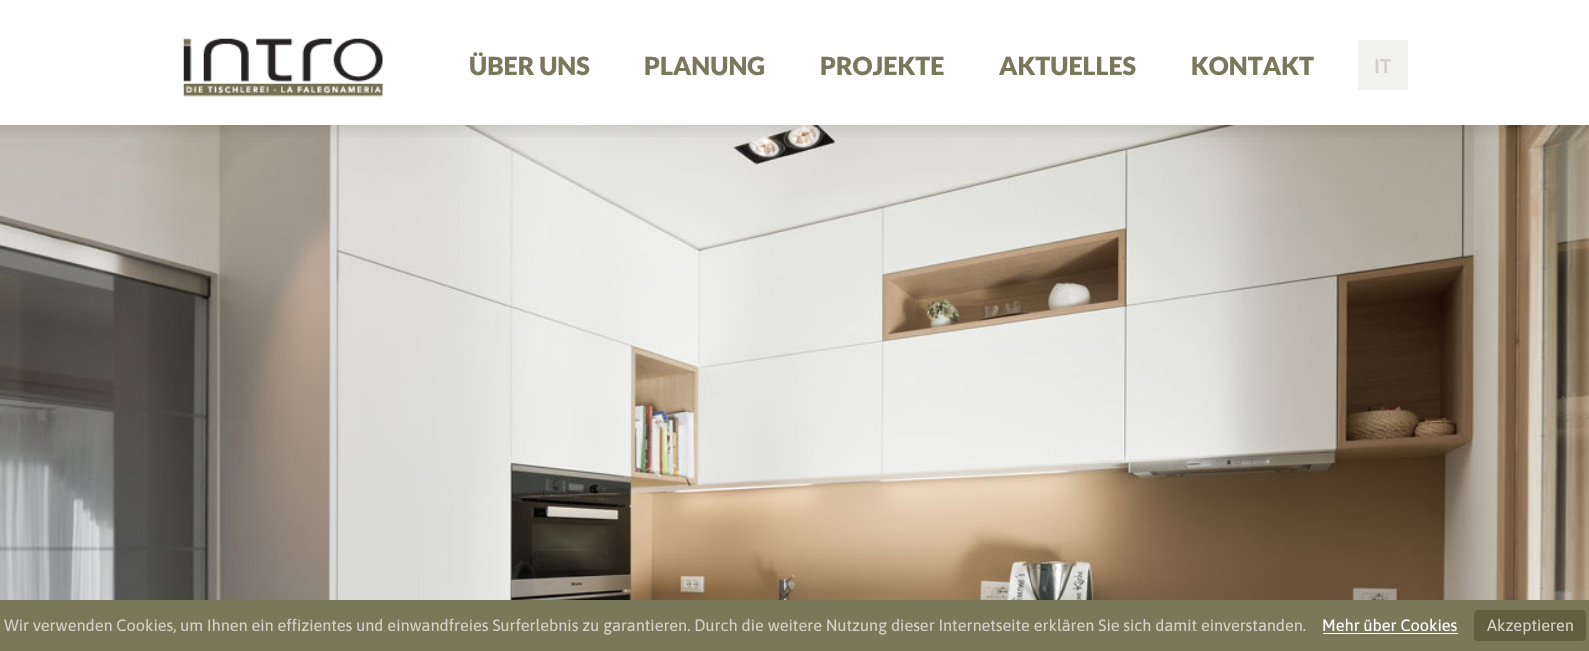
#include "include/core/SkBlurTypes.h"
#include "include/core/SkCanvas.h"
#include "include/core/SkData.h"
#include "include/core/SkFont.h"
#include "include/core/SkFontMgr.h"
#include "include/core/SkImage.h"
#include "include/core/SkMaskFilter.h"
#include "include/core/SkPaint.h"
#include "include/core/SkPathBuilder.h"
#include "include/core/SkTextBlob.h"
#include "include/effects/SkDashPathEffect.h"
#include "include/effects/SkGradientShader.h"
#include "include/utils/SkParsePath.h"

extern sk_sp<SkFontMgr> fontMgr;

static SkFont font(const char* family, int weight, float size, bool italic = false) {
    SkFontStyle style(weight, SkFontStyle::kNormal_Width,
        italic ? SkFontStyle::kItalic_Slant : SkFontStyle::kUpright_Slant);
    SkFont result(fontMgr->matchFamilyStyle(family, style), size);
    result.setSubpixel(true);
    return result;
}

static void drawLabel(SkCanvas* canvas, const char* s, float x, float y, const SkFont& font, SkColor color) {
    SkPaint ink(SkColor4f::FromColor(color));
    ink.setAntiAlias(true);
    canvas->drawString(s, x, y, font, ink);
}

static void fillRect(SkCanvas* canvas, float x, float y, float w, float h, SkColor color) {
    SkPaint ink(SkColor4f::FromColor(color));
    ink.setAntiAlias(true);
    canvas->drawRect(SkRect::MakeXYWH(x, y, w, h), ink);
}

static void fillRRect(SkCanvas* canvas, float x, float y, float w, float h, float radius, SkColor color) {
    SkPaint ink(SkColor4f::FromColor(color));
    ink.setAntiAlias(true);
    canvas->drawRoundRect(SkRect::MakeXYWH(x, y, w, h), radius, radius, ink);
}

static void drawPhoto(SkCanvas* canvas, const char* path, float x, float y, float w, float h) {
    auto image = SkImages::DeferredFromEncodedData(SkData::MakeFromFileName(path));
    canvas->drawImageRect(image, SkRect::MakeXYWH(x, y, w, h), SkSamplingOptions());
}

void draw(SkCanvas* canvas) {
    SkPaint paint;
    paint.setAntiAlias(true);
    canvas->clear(0xFFFFFFFF);
    drawPhoto(canvas, "assets/img1.png", 183, 38, 200, 59);
    SkFont font1 = font("Lato", 900, 25);
    drawLabel(canvas, "ÜBER UNS", 469, 75, font1, 0xFF7A785A);
    drawLabel(canvas, "PLANUNG", 644, 75, font1, 0xFF7A785A);
    drawLabel(canvas, "PROJEKTE", 820, 75, font1, 0xFF7A785A);
    drawLabel(canvas, "AKTUELLES", 999, 75, font1, 0xFF7A785A);
    drawLabel(canvas, "KONTAKT", 1191, 75, font1, 0xFF7A785A);
    fillRect(canvas, 1358, 40, 50, 50, 0xFFF2F2EF);
    SkFont font2 = font("Lato", 700, 19);
    drawLabel(canvas, "IT", 1374, 73, font2, 0xFFD3D1C7);
    drawPhoto(canvas, "assets/img3.png", 0, 125, 1589, 475);
    drawPhoto(canvas, "assets/img2.png", 0, 125, 1589, 12);
    fillRect(canvas, 0, 600, 1589, 51, 0xFF7A785A);
    SkFont font3 = font("Asap", 400, 16.25f);
    drawLabel(canvas, "Wir verwenden Cookies, um Ihnen ein effizientes und einwandfreies Surferlebnis zu garantieren. Durch die weitere Nutzung dieser Internetseite erklären Sie sich damit einverstanden.", 4, 631, font3, 0xFFD3D1C7);
    drawLabel(canvas, "Mehr über Cookies", 1322, 631, font3, 0xFFFFFFFF);
    fillRect(canvas, 1323, 633, 135, 1, 0xFFFFFFFF);
    fillRRect(canvas, 1474, 610, 112, 31, 4, 0xFF615F41);
    drawLabel(canvas, "Akzeptieren", 1487, 631, font3, 0xFFD3D1C7);
}
